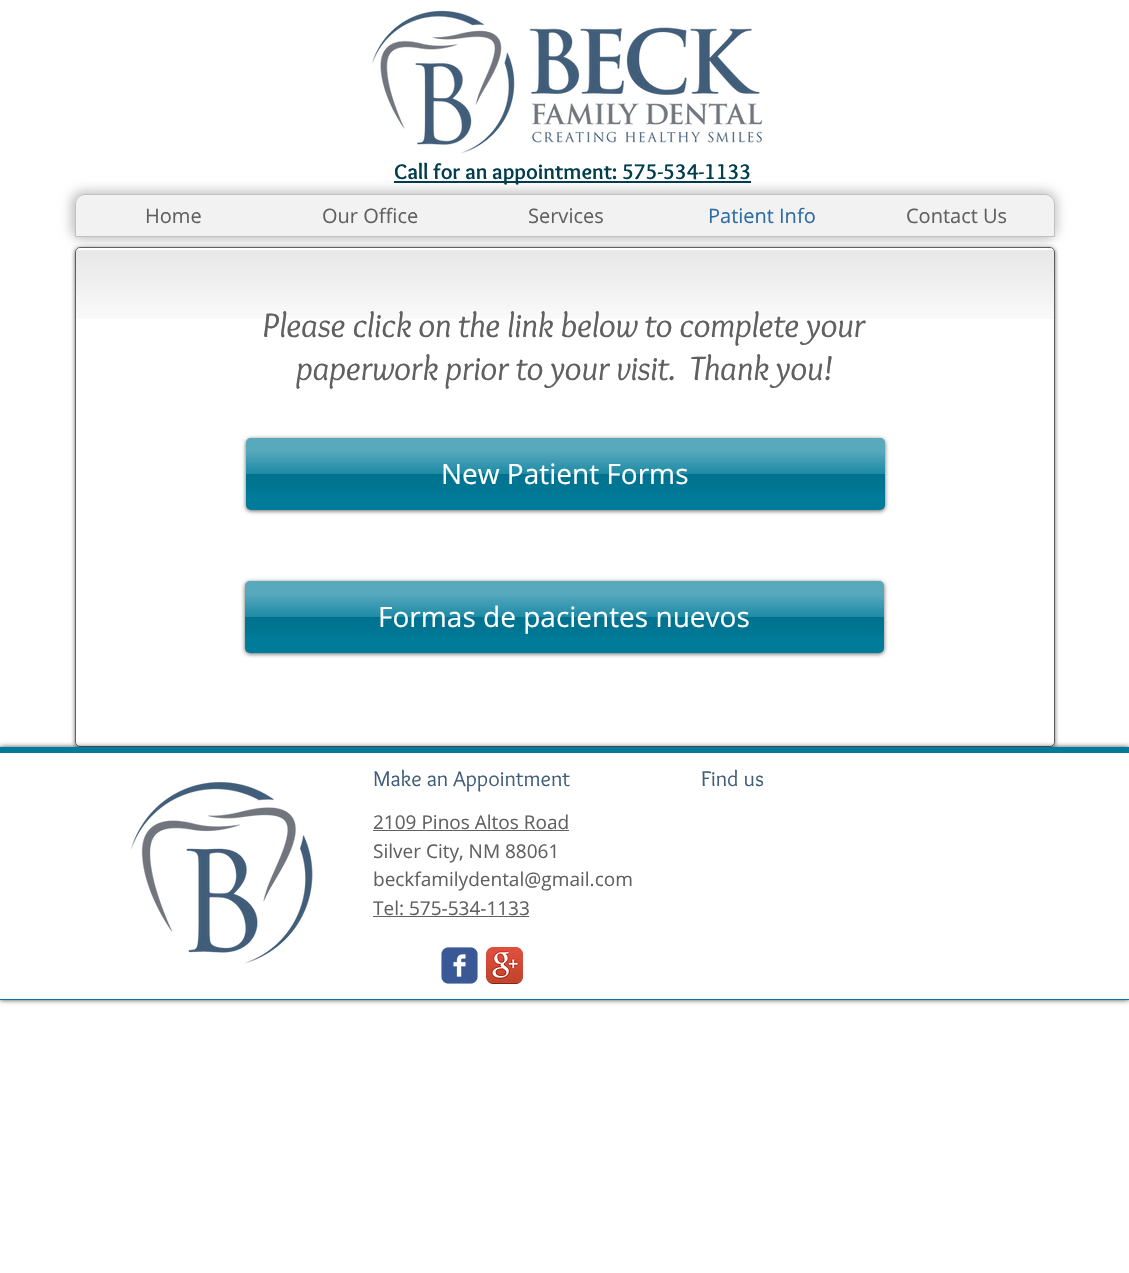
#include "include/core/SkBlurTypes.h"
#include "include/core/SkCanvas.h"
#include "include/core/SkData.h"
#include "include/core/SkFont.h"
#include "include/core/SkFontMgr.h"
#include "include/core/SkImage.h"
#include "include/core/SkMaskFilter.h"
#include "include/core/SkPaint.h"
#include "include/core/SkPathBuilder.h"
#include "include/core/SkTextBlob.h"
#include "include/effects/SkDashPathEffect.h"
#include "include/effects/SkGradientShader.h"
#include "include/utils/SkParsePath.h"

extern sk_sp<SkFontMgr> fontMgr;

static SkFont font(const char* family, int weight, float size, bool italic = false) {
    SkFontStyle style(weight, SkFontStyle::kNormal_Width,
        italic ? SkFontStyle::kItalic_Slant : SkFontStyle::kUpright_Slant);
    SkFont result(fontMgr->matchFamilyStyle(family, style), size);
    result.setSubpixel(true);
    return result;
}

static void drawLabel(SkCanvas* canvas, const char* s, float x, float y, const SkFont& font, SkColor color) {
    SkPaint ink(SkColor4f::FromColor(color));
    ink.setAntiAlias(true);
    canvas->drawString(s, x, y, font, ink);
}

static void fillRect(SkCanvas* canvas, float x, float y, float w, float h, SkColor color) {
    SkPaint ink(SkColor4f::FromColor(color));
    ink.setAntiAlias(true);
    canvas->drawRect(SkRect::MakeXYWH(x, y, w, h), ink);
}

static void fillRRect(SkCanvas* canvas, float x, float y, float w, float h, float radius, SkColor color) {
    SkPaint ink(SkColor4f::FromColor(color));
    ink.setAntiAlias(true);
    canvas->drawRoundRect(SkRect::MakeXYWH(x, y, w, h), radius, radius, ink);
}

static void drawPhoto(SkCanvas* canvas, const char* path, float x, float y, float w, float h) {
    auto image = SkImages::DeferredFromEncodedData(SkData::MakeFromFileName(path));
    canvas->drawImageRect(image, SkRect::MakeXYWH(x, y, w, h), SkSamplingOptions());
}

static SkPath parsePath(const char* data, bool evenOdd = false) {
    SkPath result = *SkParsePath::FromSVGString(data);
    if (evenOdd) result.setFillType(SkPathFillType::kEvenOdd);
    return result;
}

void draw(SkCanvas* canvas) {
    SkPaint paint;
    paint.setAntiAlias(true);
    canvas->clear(0xFFFFFFFF);
    drawPhoto(canvas, "assets/img1.png", 371, 10, 392, 144);
    fillRect(canvas, 394, 181, 357, 2, 0xFF003D4D);
    SkFont font1 = font("Overlock", 700, 22);
    drawLabel(canvas, "Call for an appointment: 575-534-1133", 394, 179, font1, 0xFF003D4D);
    paint.setColor(0x3D000000);
    paint.setMaskFilter(SkMaskFilter::MakeBlur(kNormal_SkBlurStyle, 5.5f));
    canvas->drawRoundRect(SkRect::MakeXYWH(71, 191, 986, 49), 13, 13, paint);
    paint.setMaskFilter(nullptr);
    paint.setColor(0xFFF2F2F2);
    canvas->drawPath(parsePath("M85 194H1045C1050.5 194 1055 198.5 1055 204V237H75V204C75 198.5 79.5 194 85 194Z"), paint);
    paint.setStroke(true);
    paint.setStrokeWidth(1);
    paint.setColor(0xB0A9A9A9);
    canvas->drawPath(parsePath("M85 194.5H1045C1050 194.5 1054.5 199 1054.5 204V236.5H75.5V204C75.5 199 80 194.5 85 194.5Z"), paint);
    SkFont font2 = font("Open Sans", 400, 20);
    drawLabel(canvas, "Home", 145, 223, font2, 0xFF606060);
    drawLabel(canvas, "Our Office", 322, 223, font2, 0xFF606060);
    drawLabel(canvas, "Services", 528, 223, font2, 0xFF606060);
    drawLabel(canvas, "Patient Info", 708, 223, font2, 0xFF2B6CA3);
    drawLabel(canvas, "Contact Us", 906, 223, font2, 0xFF606060);
    paint.setStroke(false);
    paint.setColor(0x99000000);
    paint.setMaskFilter(SkMaskFilter::MakeBlur(kNormal_SkBlurStyle, 2));
    canvas->drawRoundRect(SkRect::MakeXYWH(75, 248, 980, 500), 5, 5, paint);
    paint.setMaskFilter(nullptr);
    fillRRect(canvas, 75, 247, 980, 500, 5, 0xFFFFFFFF);
    drawPhoto(canvas, "assets/img2.png", 75, 250, 980, 69);
    paint.setStroke(true);
    paint.setColor(0xFF606060);
    canvas->drawRoundRect(SkRect::MakeXYWH(75.5f, 247.5f, 979, 499), 4.5f, 4.5f, paint);
    SkFont font3 = font("Overlock", 400, 35, true);
    drawLabel(canvas, "Please click on the link below to complete your", 262, 337, font3, 0xFF606060);
    drawLabel(canvas, "paperwork prior to your visit.  Thank you!", 296, 380, font3, 0xFF606060);
    paint.setStroke(false);
    paint.setColor(0x99000000);
    paint.setMaskFilter(SkMaskFilter::MakeBlur(kNormal_SkBlurStyle, 2));
    canvas->drawRoundRect(SkRect::MakeXYWH(246, 439, 639, 72), 5, 5, paint);
    paint.setMaskFilter(nullptr);
    fillRRect(canvas, 246, 438, 639, 72, 5, 0xFF007B9A);
    drawPhoto(canvas, "assets/img3.png", 246, 438, 639, 56);
    SkFont font4 = font("Open Sans", 400, 28);
    drawLabel(canvas, "New Patient Forms", 441, 484, font4, 0xFFFFFFFF);
    paint.setMaskFilter(SkMaskFilter::MakeBlur(kNormal_SkBlurStyle, 2));
    canvas->drawRoundRect(SkRect::MakeXYWH(245, 582, 639, 72), 5, 5, paint);
    paint.setMaskFilter(nullptr);
    fillRRect(canvas, 245, 581, 639, 72, 5, 0xFF007B9A);
    drawPhoto(canvas, "assets/img3.png", 245, 581, 639, 56);
    drawLabel(canvas, "Formas de pacientes nuevos", 378, 627, font4, 0xFFFFFFFF);
    paint.setColor(0xB3000000);
    paint.setMaskFilter(SkMaskFilter::MakeBlur(kNormal_SkBlurStyle, 2.5f));
    canvas->drawRect(SkRect::MakeXYWH(0, 747, 1129, 253), paint);
    paint.setMaskFilter(nullptr);
    fillRect(canvas, 0, 753, 1129, 246, 0xFFFFFFFF);
    fillRect(canvas, 0, 747, 1129, 6, 0xFF007B9A);
    fillRect(canvas, 0, 999, 1129, 1, 0xFF007B9A);
    SkFont font5 = font("Overlock", 400, 22);
    drawLabel(canvas, "Make an Appointment", 373, 786, font5, 0xFF405E7A);
    drawLabel(canvas, "Find us", 701, 786, font5, 0xFF405E7A);
    drawPhoto(canvas, "assets/img4.png", 130, 781, 183, 183);
    SkFont font6 = font("Open Sans", 400, 19);
    drawLabel(canvas, "2109 Pinos Altos Road", 373, 829, font6, 0xFF606060);
    fillRect(canvas, 373, 830, 196, 1, 0xFF606060);
    drawLabel(canvas, "Silver City, NM 88061", 373, 858, font6, 0xFF606060);
    drawLabel(canvas, "beckfamilydental@gmail.com", 373, 886, font6, 0xFF606060);
    drawLabel(canvas, "Tel: 575-534-1133", 373, 915, font6, 0xFF606060);
    fillRect(canvas, 373, 916, 156, 1, 0xFF606060);
    drawPhoto(canvas, "assets/img5.png", 441, 947, 37, 37);
    drawPhoto(canvas, "assets/img6.png", 486, 947, 37, 37);
}
